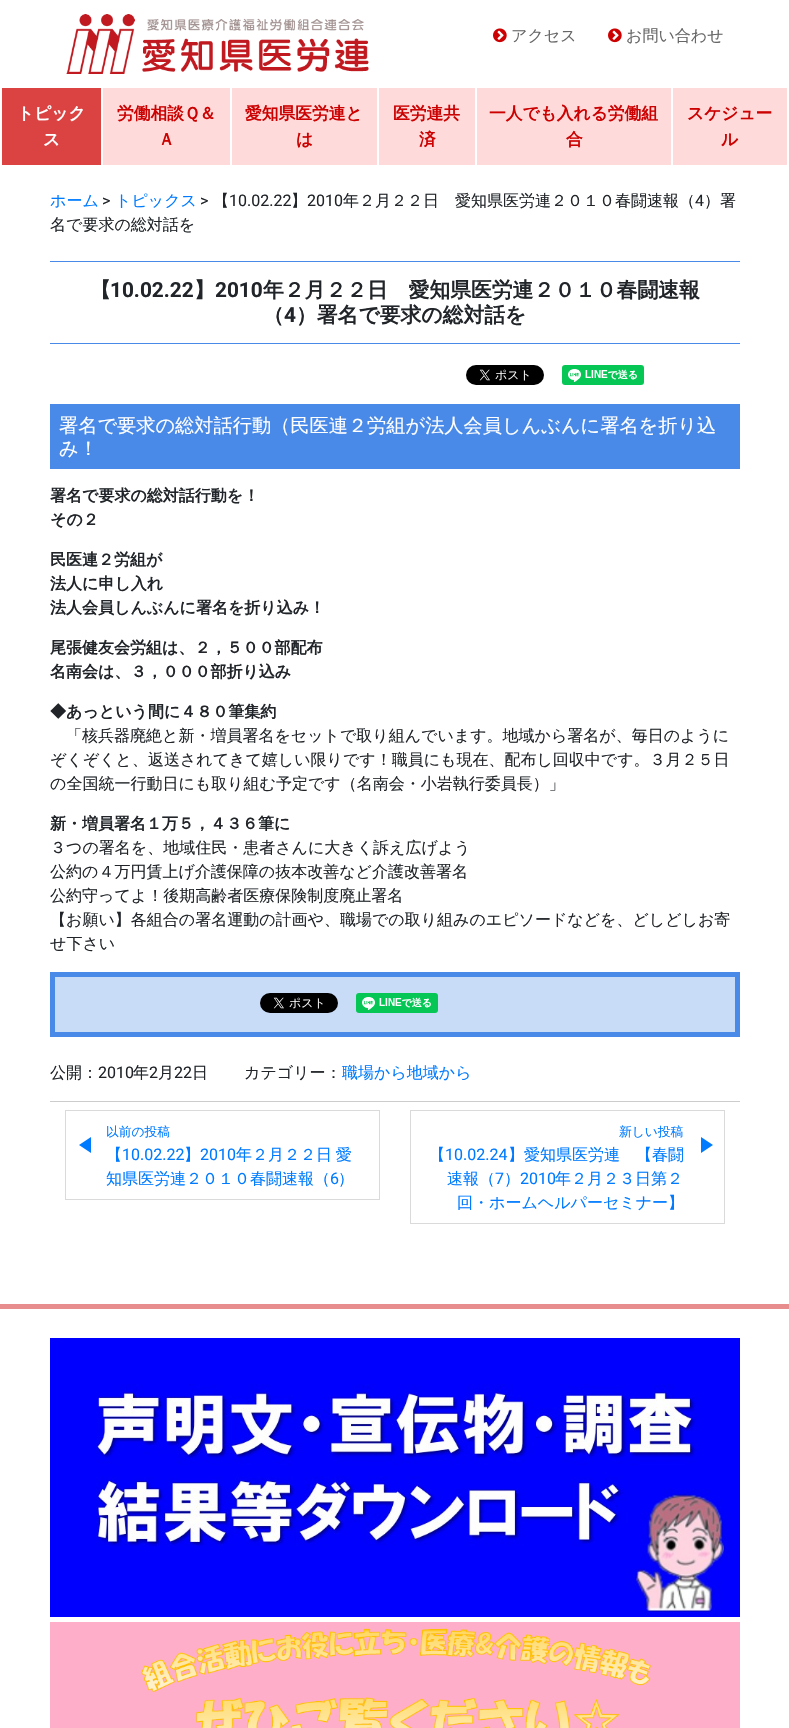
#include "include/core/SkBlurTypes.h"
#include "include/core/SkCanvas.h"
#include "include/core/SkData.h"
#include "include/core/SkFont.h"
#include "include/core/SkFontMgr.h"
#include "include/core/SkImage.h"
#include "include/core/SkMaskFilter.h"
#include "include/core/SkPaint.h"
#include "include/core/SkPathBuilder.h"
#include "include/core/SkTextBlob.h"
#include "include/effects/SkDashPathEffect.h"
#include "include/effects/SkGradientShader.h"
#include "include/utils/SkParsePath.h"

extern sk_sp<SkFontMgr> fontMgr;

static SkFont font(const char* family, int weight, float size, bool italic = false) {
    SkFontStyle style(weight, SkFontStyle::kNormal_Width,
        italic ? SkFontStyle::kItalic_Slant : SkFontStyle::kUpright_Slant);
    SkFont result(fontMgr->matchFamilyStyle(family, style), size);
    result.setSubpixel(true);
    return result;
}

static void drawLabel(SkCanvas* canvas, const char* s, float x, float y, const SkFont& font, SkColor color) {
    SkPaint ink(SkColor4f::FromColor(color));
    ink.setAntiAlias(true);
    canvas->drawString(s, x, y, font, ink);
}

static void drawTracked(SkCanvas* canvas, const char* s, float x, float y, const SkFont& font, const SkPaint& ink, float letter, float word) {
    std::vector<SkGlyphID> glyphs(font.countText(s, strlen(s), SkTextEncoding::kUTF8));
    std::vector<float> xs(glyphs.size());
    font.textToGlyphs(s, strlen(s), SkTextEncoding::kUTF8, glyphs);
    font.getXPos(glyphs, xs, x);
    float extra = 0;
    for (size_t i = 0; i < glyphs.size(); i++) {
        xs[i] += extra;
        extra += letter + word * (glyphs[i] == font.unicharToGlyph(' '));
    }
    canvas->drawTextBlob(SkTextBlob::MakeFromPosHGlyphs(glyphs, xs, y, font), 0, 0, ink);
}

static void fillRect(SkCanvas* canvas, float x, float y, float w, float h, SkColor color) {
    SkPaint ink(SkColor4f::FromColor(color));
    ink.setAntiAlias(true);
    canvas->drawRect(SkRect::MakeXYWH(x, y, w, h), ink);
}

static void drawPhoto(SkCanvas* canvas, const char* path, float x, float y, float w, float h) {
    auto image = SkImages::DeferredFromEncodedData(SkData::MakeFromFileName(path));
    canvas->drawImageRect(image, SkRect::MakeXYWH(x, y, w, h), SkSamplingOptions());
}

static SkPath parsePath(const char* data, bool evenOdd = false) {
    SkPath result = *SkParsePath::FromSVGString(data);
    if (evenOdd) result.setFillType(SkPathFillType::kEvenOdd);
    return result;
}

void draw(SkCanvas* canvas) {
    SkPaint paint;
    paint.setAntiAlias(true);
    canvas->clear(0xFFFFFFFF);
    drawPhoto(canvas, "assets/img1.png", 66, 14, 303, 60);
    drawPhoto(canvas, "assets/img2.png", 493, 28, 14, 15);
    SkFont font1 = font("WenQuanYi Zen Hei", 500, 16);
    drawLabel(canvas, "アクセス", 511, 41, font1, 0xFF666666);
    drawPhoto(canvas, "assets/img2.png", 608, 28, 14, 15);
    drawLabel(canvas, "お問い合わせ", 626, 41, font1, 0xFF666666);
    fillRect(canvas, 103, 88, 684, 77, 0xFFFEDADA);
    fillRect(canvas, 2, 88, 99, 77, 0xFFDB4343);
    SkFont font2 = font("WenQuanYi Zen Hei", 700, 16.75f);
    drawLabel(canvas, "トピック", 17, 119, font2, 0xFFFFFFFF);
    drawLabel(canvas, "ス", 43, 145, font2, 0xFFFFFFFF);
    fillRect(canvas, 230, 88, 2, 77, 0xFFFFFFFF);
    drawLabel(canvas, "労働相談Ｑ＆", 117, 119, font2, 0xFFCC0202);
    drawLabel(canvas, "Ａ", 158, 145, font2, 0xFFCC0202);
    fillRect(canvas, 377, 88, 2, 77, 0xFFFFFFFF);
    drawLabel(canvas, "愛知県医労連と", 245, 119, font2, 0xFFCC0202);
    drawLabel(canvas, "は", 296, 145, font2, 0xFFCC0202);
    fillRect(canvas, 475, 88, 2, 77, 0xFFFFFFFF);
    drawLabel(canvas, "医労連共", 393, 119, font2, 0xFFCC0202);
    drawLabel(canvas, "済", 419, 145, font2, 0xFFCC0202);
    fillRect(canvas, 671, 88, 2, 77, 0xFFFFFFFF);
    drawLabel(canvas, "一人でも入れる労働組", 489, 119, font2, 0xFFCC0202);
    drawLabel(canvas, "合", 566, 145, font2, 0xFFCC0202);
    drawLabel(canvas, "スケジュー", 687, 119, font2, 0xFFCC0202);
    drawLabel(canvas, "ル", 721, 145, font2, 0xFFCC0202);
    drawLabel(canvas, "ホーム", 50, 206, font1, 0xFF007BFF);
    SkFont font3 = font("Roboto", 400, 16);
    drawLabel(canvas, ">", 102, 206, font3, 0xFF212529);
    drawLabel(canvas, "トピックス", 115, 206, font1, 0xFF007BFF);
    drawLabel(canvas, ">", 200, 206, font3, 0xFF212529);
    drawLabel(canvas, "【", 213, 206, font1, 0xFF212529);
    drawLabel(canvas, "10.02.22", 229, 206, font3, 0xFF212529);
    drawLabel(canvas, "】", 291, 206, font1, 0xFF212529);
    drawLabel(canvas, "2010", 307, 206, font3, 0xFF212529);
    drawLabel(canvas, "年２月２２日　愛知県医労連２０１０春闘速報（", 343, 206, font1, 0xFF212529);
    drawLabel(canvas, "4", 695, 206, font3, 0xFF212529);
    drawLabel(canvas, "）署", 704, 206, font1, 0xFF212529);
    drawLabel(canvas, "名で要求の総対話を", 50, 230, font1, 0xFF212529);
    fillRect(canvas, 50, 261, 690, 1, 0xFF498AE9);
    fillRect(canvas, 50, 343, 690, 1, 0xFF498AE9);
    SkFont font4 = font("WenQuanYi Zen Hei", 700, 20.8f);
    drawLabel(canvas, "【", 90, 297, font4, 0xFF212529);
    SkFont font5 = font("Roboto", 700, 20.8f);
    drawLabel(canvas, "10.02.22", 110, 297, font5, 0xFF212529);
    drawLabel(canvas, "】", 194, 297, font4, 0xFF212529);
    drawLabel(canvas, "2010", 215, 297, font5, 0xFF212529);
    drawLabel(canvas, "年２月２２日　愛知県医労連２０１０春闘速報", 263, 297, font4, 0xFF212529);
    drawLabel(canvas, "（", 263, 322, font4, 0xFF212529);
    drawLabel(canvas, "4", 284, 322, font5, 0xFF212529);
    drawLabel(canvas, "）署名で要求の総対話を", 296, 322, font4, 0xFF212529);
    drawPhoto(canvas, "assets/img3.png", 466, 365, 78, 20);
    drawPhoto(canvas, "assets/img4.png", 562, 365, 82, 20);
    fillRect(canvas, 50, 404, 690, 65, 0xFF498AE9);
    SkFont font6 = font("WenQuanYi Zen Hei", 500, 19.2f);
    drawLabel(canvas, "署名で要求の総対話行動（民医連２労組が法人会員しんぶんに署名を折り込", 59, 432, font6, 0xFFFFFFFF);
    drawLabel(canvas, "み！", 59, 455, font6, 0xFFFFFFFF);
    SkFont font7 = font("WenQuanYi Zen Hei", 700, 16);
    drawLabel(canvas, "署名で要求の総対話行動を！", 50, 501, font7, 0xFF212529);
    drawLabel(canvas, "その２", 50, 525, font7, 0xFF212529);
    drawLabel(canvas, "民医連２労組が", 50, 565, font7, 0xFF212529);
    drawLabel(canvas, "法人に申し入れ", 50, 589, font7, 0xFF212529);
    drawLabel(canvas, "法人会員しんぶんに署名を折り込み！", 50, 613, font7, 0xFF212529);
    drawLabel(canvas, "尾張健友会労組は、２，５００部配布", 50, 653, font7, 0xFF212529);
    drawLabel(canvas, "名南会は、３，０００部折り込み", 50, 677, font7, 0xFF212529);
    drawLabel(canvas, "◆あっという間に４８０筆集約", 50, 717, font7, 0xFF212529);
    drawLabel(canvas, "「核兵器廃絶と新・増員署名をセットで取り組んでいます。地域から署名が、毎日のように", 66, 741, font1, 0xFF212529);
    drawLabel(canvas, "ぞくぞくと、返送されてきて嬉しい限りです！職員にも現在、配布し回収中です。３月２５日", 50, 765, font1, 0xFF212529);
    drawLabel(canvas, "の全国統一行動日にも取り組む予定です（名南会・小岩執行委員長）」", 50, 789, font1, 0xFF212529);
    drawLabel(canvas, "新・増員署名１万５，４３６筆に", 50, 829, font7, 0xFF212529);
    drawLabel(canvas, "３つの署名を、地域住民・患者さんに大きく訴え広げよう", 50, 853, font1, 0xFF212529);
    drawLabel(canvas, "公約の４万円賃上げ介護保障の抜本改善など介護改善署名", 50, 877, font1, 0xFF212529);
    drawLabel(canvas, "公約守ってよ！後期高齢者医療保険制度廃止署名", 50, 901, font1, 0xFF212529);
    drawLabel(canvas, "【お願い】各組合の署名運動の計画や、職場での取り組みのエピソードなどを、どしどしお寄", 50, 925, font1, 0xFF212529);
    drawLabel(canvas, "せ下さい", 50, 949, font1, 0xFF212529);
    paint.setColor(0xFFC8DCF8);
    canvas->drawRect(SkRect::MakeXYWH(52.5f, 974.5f, 685, 60), paint);
    paint.setStroke(true);
    paint.setStrokeWidth(5);
    paint.setColor(0xFF498AE9);
    canvas->drawRect(SkRect::MakeXYWH(52.5f, 974.5f, 685, 60), paint);
    drawPhoto(canvas, "assets/img5.png", 260, 993, 78, 20);
    drawPhoto(canvas, "assets/img6.png", 356, 993, 82, 20);
    drawLabel(canvas, "公開：", 50, 1078, font1, 0xFF212529);
    drawLabel(canvas, "2010", 98, 1078, font3, 0xFF212529);
    drawLabel(canvas, "年", 133, 1078, font1, 0xFF212529);
    drawLabel(canvas, "2", 149, 1078, font3, 0xFF212529);
    drawLabel(canvas, "月", 158, 1078, font1, 0xFF212529);
    drawLabel(canvas, "22", 174, 1078, font3, 0xFF212529);
    drawLabel(canvas, "日", 192, 1078, font1, 0xFF212529);
    drawLabel(canvas, "カテゴリー：", 244, 1078, font1, 0xFF212529);
    drawLabel(canvas, "職場から地域から", 342, 1078, font1, 0xFF007BFF);
    fillRect(canvas, 50, 1101, 690, 1, 0xFFCCCCCC);
    paint.setStrokeWidth(1);
    paint.setColor(0xFFDADADA);
    canvas->drawRect(SkRect::MakeXYWH(65.5f, 1110.5f, 314, 89), paint);
    SkFont font8 = font("WenQuanYi Zen Hei", 500, 12.75f);
    drawLabel(canvas, "以前の投稿", 106, 1136, font8, 0xFF007BFF);
    paint.setStroke(false);
    paint.setColor(0xFF007BFF);
    canvas->drawPath(parsePath("M91 1153L79 1145L91 1137Z"), paint);
    drawLabel(canvas, "【", 106, 1160, font1, 0xFF007BFF);
    drawLabel(canvas, "10.02.22", 122, 1160, font3, 0xFF007BFF);
    drawLabel(canvas, "】", 184, 1160, font1, 0xFF007BFF);
    drawLabel(canvas, "2010", 200, 1160, font3, 0xFF007BFF);
    drawTracked(canvas, "年２月２２日 愛", 236, 1160, font1, paint, 0, -1);
    drawLabel(canvas, "知県医労連２０１０春闘速報（", 106, 1184, font1, 0xFF007BFF);
    drawLabel(canvas, "6", 330, 1184, font3, 0xFF007BFF);
    drawLabel(canvas, "）", 338, 1184, font1, 0xFF007BFF);
    paint.setStroke(true);
    paint.setColor(0xFFDADADA);
    canvas->drawRect(SkRect::MakeXYWH(410.5f, 1110.5f, 314, 113), paint);
    drawLabel(canvas, "新しい投稿", 619, 1136, font8, 0xFF007BFF);
    drawLabel(canvas, "【", 429, 1160, font1, 0xFF007BFF);
    drawLabel(canvas, "10.02.24", 445, 1160, font3, 0xFF007BFF);
    drawLabel(canvas, "】愛知県医労連　【春闘", 508, 1160, font1, 0xFF007BFF);
    paint.setStroke(false);
    paint.setColor(0xFF007BFF);
    canvas->drawPath(parsePath("M701 1137L713 1145L701 1153Z"), paint);
    drawLabel(canvas, "速報（", 447, 1184, font1, 0xFF007BFF);
    drawLabel(canvas, "7", 495, 1184, font3, 0xFF007BFF);
    drawLabel(canvas, "）", 504, 1184, font1, 0xFF007BFF);
    drawLabel(canvas, "2010", 520, 1184, font3, 0xFF007BFF);
    drawLabel(canvas, "年２月２３日第２", 555, 1184, font1, 0xFF007BFF);
    drawLabel(canvas, "回・ホームヘルパーセミナー】", 457, 1208, font1, 0xFF007BFF);
    fillRect(canvas, 0, 1304, 789, 5, 0xFFE78D8D);
    drawPhoto(canvas, "assets/img7.png", 50, 1338, 690, 279);
    drawPhoto(canvas, "assets/img8.png", 50, 1622, 690, 106);
}
